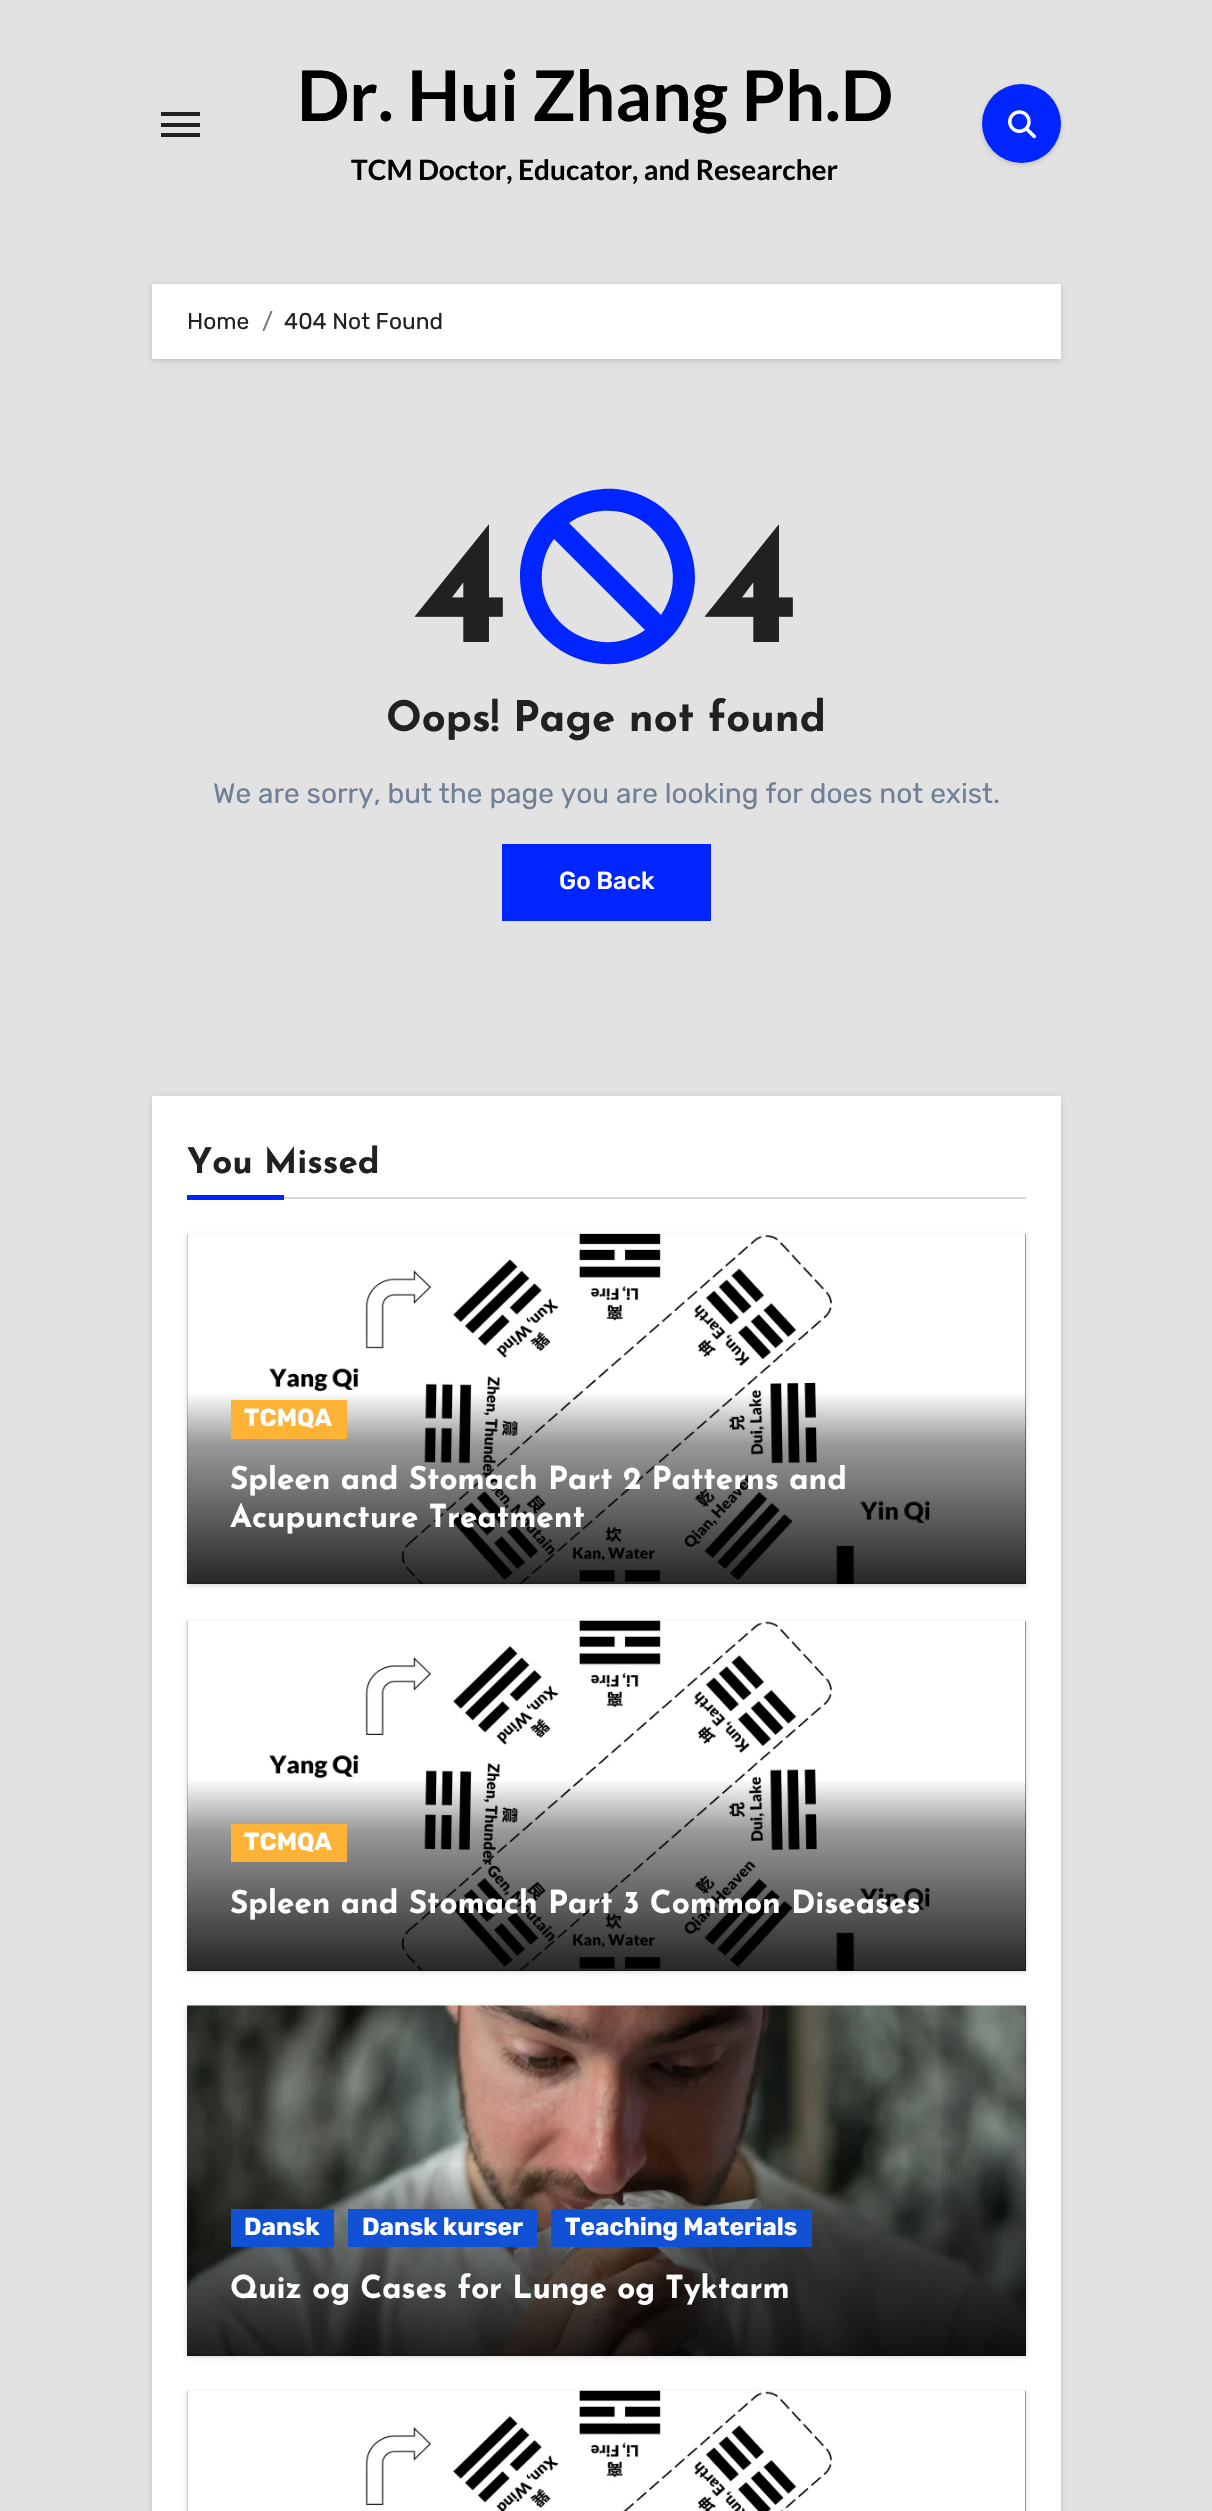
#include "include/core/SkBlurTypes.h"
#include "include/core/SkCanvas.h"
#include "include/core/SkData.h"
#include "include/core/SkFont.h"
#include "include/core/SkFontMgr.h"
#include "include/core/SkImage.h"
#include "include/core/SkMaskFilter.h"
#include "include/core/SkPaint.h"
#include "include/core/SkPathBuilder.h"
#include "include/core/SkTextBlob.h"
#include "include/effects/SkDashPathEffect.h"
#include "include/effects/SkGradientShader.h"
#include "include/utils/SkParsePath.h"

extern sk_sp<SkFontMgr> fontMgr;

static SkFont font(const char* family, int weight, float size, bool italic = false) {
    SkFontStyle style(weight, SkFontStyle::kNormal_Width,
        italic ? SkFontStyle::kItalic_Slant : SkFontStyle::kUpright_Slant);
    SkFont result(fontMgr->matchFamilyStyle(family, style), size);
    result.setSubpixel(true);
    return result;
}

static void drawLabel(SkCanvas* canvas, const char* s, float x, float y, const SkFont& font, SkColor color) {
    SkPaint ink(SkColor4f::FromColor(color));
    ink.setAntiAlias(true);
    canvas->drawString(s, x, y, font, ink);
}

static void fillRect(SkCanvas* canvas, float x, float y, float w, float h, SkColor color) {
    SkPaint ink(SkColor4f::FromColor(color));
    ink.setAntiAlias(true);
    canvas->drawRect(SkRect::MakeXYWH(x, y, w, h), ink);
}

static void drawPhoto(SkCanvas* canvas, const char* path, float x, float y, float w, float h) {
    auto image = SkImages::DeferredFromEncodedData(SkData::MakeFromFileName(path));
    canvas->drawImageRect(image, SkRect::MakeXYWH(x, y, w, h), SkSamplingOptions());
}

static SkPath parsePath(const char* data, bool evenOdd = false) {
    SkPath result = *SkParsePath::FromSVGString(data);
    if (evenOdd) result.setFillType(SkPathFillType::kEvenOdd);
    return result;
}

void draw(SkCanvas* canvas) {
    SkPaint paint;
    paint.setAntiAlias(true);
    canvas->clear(0xFFE2E2E2);
    fillRect(canvas, 161, 112, 39, 4, 0xFF212121);
    fillRect(canvas, 161, 123, 39, 4, 0xFF212121);
    fillRect(canvas, 161, 133, 39, 4, 0xFF212121);
    SkFont font1 = font("Lato", 700, 70);
    drawLabel(canvas, "Dr. Hui Zhang Ph.D", 297, 121, font1, 0xFF000000);
    SkFont font2 = font("Lato", 700, 28);
    drawLabel(canvas, "TCM Doctor, Educator, and Researcher", 351, 180, font2, 0xFF000000);
    paint.setColor(0x26000000);
    paint.setMaskFilter(SkMaskFilter::MakeBlur(kNormal_SkBlurStyle, 2.5f));
    canvas->drawRoundRect(SkRect::MakeXYWH(982, 86, 79, 79), 39.5f, 39.5f, paint);
    paint.setMaskFilter(nullptr);
    paint.setColor(0xFF0025FF);
    canvas->drawCircle(1021.5f, 123.5f, 39.5f, paint);
    drawPhoto(canvas, "assets/img1.png", 1008, 110, 28, 29);
    paint.setColor(0x26000000);
    paint.setMaskFilter(SkMaskFilter::MakeBlur(kNormal_SkBlurStyle, 2.5f));
    canvas->drawRect(SkRect::MakeXYWH(152, 285, 909, 76), paint);
    paint.setMaskFilter(nullptr);
    fillRect(canvas, 152, 284, 909, 75, 0xFFFFFFFF);
    SkFont font3 = font("Rubik", 300, 22.75f);
    drawLabel(canvas, "Home", 187, 329, font3, 0xFF212121);
    drawLabel(canvas, "/", 262, 329, font3, 0xFF6C757D);
    drawLabel(canvas, "404 Not Found", 284, 329, font3, 0xFF212121);
    SkFont font4 = font("Josefin Sans", 700, 175);
    drawLabel(canvas, "4", 413, 642, font4, 0xFF212121);
    paint.setColor(0xFF0025FF);
    canvas->drawPath(parsePath("M645 630L554 539C547 548 543 560 542 571C537 627 600 662 645 630ZM661 615C693 570 657 506 602 511C590 512 579 516 569 523ZM520 577C521 493 626 457 677 523C688 539 695 558 695 577C695 596 688 615 677 630C626 696 521 660 520 577Z"), paint);
    drawLabel(canvas, "4", 703, 642, font4, 0xFF212121);
    SkFont font5 = font("Josefin Sans", 700, 42);
    drawLabel(canvas, "Oops! Page not found", 386, 731, font5, 0xFF212121);
    SkFont font6 = font("Rubik", 300, 28);
    drawLabel(canvas, "We are sorry, but the page you are looking for does not exist.", 213, 803, font6, 0xFF718096);
    fillRect(canvas, 502, 844, 209, 77, 0xFF0025FF);
    SkFont font7 = font("Rubik", 500, 24.5f);
    drawLabel(canvas, "Go Back", 559, 889, font7, 0xFFFFFFFF);
    paint.setColor(0x26000000);
    paint.setMaskFilter(SkMaskFilter::MakeBlur(kNormal_SkBlurStyle, 2.5f));
    canvas->drawRect(SkRect::MakeXYWH(152, 1097, 909, 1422), paint);
    paint.setMaskFilter(nullptr);
    fillRect(canvas, 152, 1096, 909, 1415, 0xFFFFFFFF);
    fillRect(canvas, 284, 1197, 742, 2, 0xFFD7D7D7);
    SkFont font8 = font("Josefin Sans", 700, 35);
    drawLabel(canvas, "You Missed", 187, 1173, font8, 0xFF212121);
    fillRect(canvas, 187, 1195, 97, 5, 0xFF0025FF);
    paint.setMaskFilter(SkMaskFilter::MakeBlur(kNormal_SkBlurStyle, 2.5f));
    canvas->drawRect(SkRect::MakeXYWH(187, 1236, 839, 350), paint);
    paint.setMaskFilter(nullptr);
    fillRect(canvas, 187, 1234, 839, 350, 0xFF333333);
    drawPhoto(canvas, "assets/img2.png", 187, 1233, 839, 351);
    {
        const SkColor colors[] = {0x00000000, 0x00000000, 0x66000000, 0xD9000000};
        const float stops[] = {0, 0.45f, 0.6f, 1};
        const SkPoint ends[] = {{606, 1234}, {606, 1584}};
        paint.setShader(SkGradientShader::MakeLinear(ends, colors, stops, 4, SkTileMode::kClamp));
        paint.setAlpha(255);
    }
    canvas->drawRect(SkRect::MakeXYWH(187, 1394, 839, 190), paint);
    fillRect(canvas, 231, 1400, 116, 39, 0xFFFEB236);
    SkFont font9 = font("Rubik", 700, 24.5f);
    drawLabel(canvas, "TCMQA", 244, 1426, font9, 0xFFFFFFFF);
    canvas->save();
    canvas->clipRect(SkRect::MakeXYWH(231, 1465, 751, 75));
    SkFont font10 = font("Josefin Sans", 700, 31.5f);
    drawLabel(canvas, "Spleen and Stomach Part 2 Patterns and", 230, 1489, font10, 0xFFFFFFFF);
    canvas->restore();
    drawLabel(canvas, "Acupuncture Treatment", 230, 1527, font10, 0xFFFFFFFF);
    paint.setShader(nullptr);
    paint.setColor(0x26000000);
    paint.setMaskFilter(SkMaskFilter::MakeBlur(kNormal_SkBlurStyle, 2.5f));
    canvas->drawRect(SkRect::MakeXYWH(187, 1622, 839, 350), paint);
    paint.setMaskFilter(nullptr);
    fillRect(canvas, 187, 1621, 839, 350, 0xFF333333);
    drawPhoto(canvas, "assets/img3.png", 187, 1620, 839, 351);
    {
        const SkColor colors[] = {0x00000000, 0x00000000, 0x66000000, 0xD9000000};
        const float stops[] = {0, 0.45f, 0.6f, 1};
        const SkPoint ends[] = {{606, 1621}, {606, 1971}};
        paint.setShader(SkGradientShader::MakeLinear(ends, colors, stops, 4, SkTileMode::kClamp));
        paint.setAlpha(255);
    }
    canvas->drawRect(SkRect::MakeXYWH(187, 1781, 839, 190), paint);
    fillRect(canvas, 231, 1824, 116, 38, 0xFFFEB236);
    drawLabel(canvas, "TCMQA", 244, 1850, font9, 0xFFFFFFFF);
    drawLabel(canvas, "Spleen and Stomach Part 3 Common Diseases", 230, 1913, font10, 0xFFFFFFFF);
    paint.setShader(nullptr);
    paint.setColor(0x26000000);
    paint.setMaskFilter(SkMaskFilter::MakeBlur(kNormal_SkBlurStyle, 2.5f));
    canvas->drawRect(SkRect::MakeXYWH(187, 2007, 839, 350), paint);
    paint.setMaskFilter(nullptr);
    fillRect(canvas, 187, 2006, 839, 350, 0xFF333333);
    drawPhoto(canvas, "assets/img4.png", 187, 2005, 839, 351);
    {
        const SkColor colors[] = {0x00000000, 0x00000000, 0x66000000, 0xD9000000};
        const float stops[] = {0, 0.45f, 0.6f, 1};
        const SkPoint ends[] = {{606, 2006}, {606, 2356}};
        paint.setShader(SkGradientShader::MakeLinear(ends, colors, stops, 4, SkTileMode::kClamp));
        paint.setAlpha(255);
    }
    canvas->drawRect(SkRect::MakeXYWH(187, 2166, 839, 190), paint);
    fillRect(canvas, 231, 2209, 103, 38, 0xFF1151D3);
    drawLabel(canvas, "Dansk", 244, 2235, font9, 0xFFFFFFFF);
    fillRect(canvas, 348, 2209, 189, 38, 0xFF1151D3);
    drawLabel(canvas, "Dansk kurser", 362, 2235, font9, 0xFFFFFFFF);
    fillRect(canvas, 551, 2209, 261, 38, 0xFF1151D3);
    drawLabel(canvas, "Teaching Materials", 565, 2235, font9, 0xFFFFFFFF);
    drawLabel(canvas, "Quiz og Cases for Lunge og Tyktarm", 230, 2298, font10, 0xFFFFFFFF);
    paint.setShader(nullptr);
    paint.setColor(0x26000000);
    paint.setMaskFilter(SkMaskFilter::MakeBlur(kNormal_SkBlurStyle, 2.5f));
    canvas->drawRect(SkRect::MakeXYWH(187, 2392, 839, 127), paint);
    paint.setMaskFilter(nullptr);
    fillRect(canvas, 187, 2391, 839, 120, 0xFF333333);
    drawPhoto(canvas, "assets/img5.png", 187, 2390, 839, 121);
}
